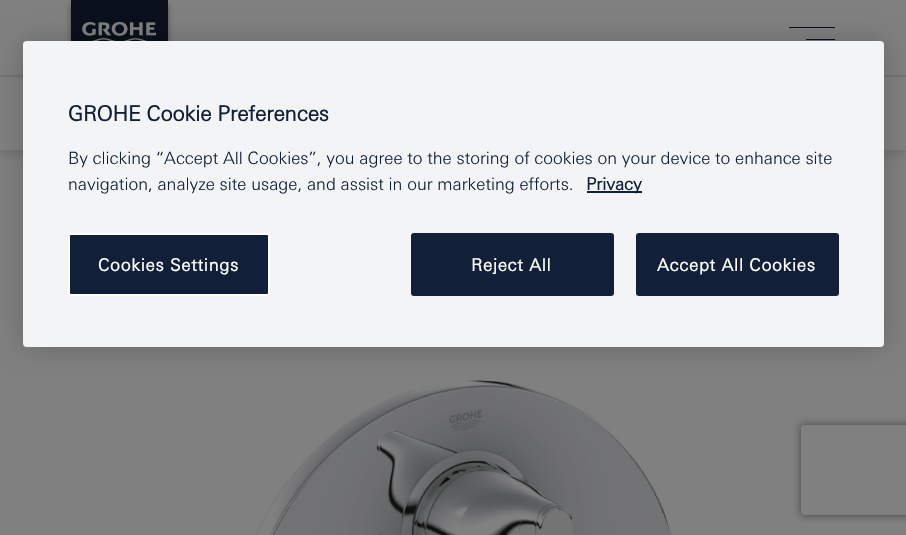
#include "include/core/SkBlurTypes.h"
#include "include/core/SkCanvas.h"
#include "include/core/SkData.h"
#include "include/core/SkFont.h"
#include "include/core/SkFontMgr.h"
#include "include/core/SkImage.h"
#include "include/core/SkMaskFilter.h"
#include "include/core/SkPaint.h"
#include "include/core/SkPathBuilder.h"
#include "include/core/SkTextBlob.h"
#include "include/effects/SkDashPathEffect.h"
#include "include/effects/SkGradientShader.h"
#include "include/utils/SkParsePath.h"

extern sk_sp<SkFontMgr> fontMgr;

static SkFont font(const char* family, int weight, float size, bool italic = false) {
    SkFontStyle style(weight, SkFontStyle::kNormal_Width,
        italic ? SkFontStyle::kItalic_Slant : SkFontStyle::kUpright_Slant);
    SkFont result(fontMgr->matchFamilyStyle(family, style), size);
    result.setSubpixel(true);
    return result;
}

static void drawLabel(SkCanvas* canvas, const char* s, float x, float y, const SkFont& font, SkColor color) {
    SkPaint ink(SkColor4f::FromColor(color));
    ink.setAntiAlias(true);
    canvas->drawString(s, x, y, font, ink);
}

static void drawTracked(SkCanvas* canvas, const char* s, float x, float y, const SkFont& font, const SkPaint& ink, float letter, float word) {
    std::vector<SkGlyphID> glyphs(font.countText(s, strlen(s), SkTextEncoding::kUTF8));
    std::vector<float> xs(glyphs.size());
    font.textToGlyphs(s, strlen(s), SkTextEncoding::kUTF8, glyphs);
    font.getXPos(glyphs, xs, x);
    float extra = 0;
    for (size_t i = 0; i < glyphs.size(); i++) {
        xs[i] += extra;
        extra += letter + word * (glyphs[i] == font.unicharToGlyph(' '));
    }
    canvas->drawTextBlob(SkTextBlob::MakeFromPosHGlyphs(glyphs, xs, y, font), 0, 0, ink);
}

static void fillRect(SkCanvas* canvas, float x, float y, float w, float h, SkColor color) {
    SkPaint ink(SkColor4f::FromColor(color));
    ink.setAntiAlias(true);
    canvas->drawRect(SkRect::MakeXYWH(x, y, w, h), ink);
}

static void fillRRect(SkCanvas* canvas, float x, float y, float w, float h, float radius, SkColor color) {
    SkPaint ink(SkColor4f::FromColor(color));
    ink.setAntiAlias(true);
    canvas->drawRoundRect(SkRect::MakeXYWH(x, y, w, h), radius, radius, ink);
}

static void drawPhoto(SkCanvas* canvas, const char* path, float x, float y, float w, float h) {
    auto image = SkImages::DeferredFromEncodedData(SkData::MakeFromFileName(path));
    canvas->drawImageRect(image, SkRect::MakeXYWH(x, y, w, h), SkSamplingOptions());
}

static SkPath parsePath(const char* data, bool evenOdd = false) {
    SkPath result = *SkParsePath::FromSVGString(data);
    if (evenOdd) result.setFillType(SkPathFillType::kEvenOdd);
    return result;
}

void draw(SkCanvas* canvas) {
    SkPaint paint;
    paint.setAntiAlias(true);
    canvas->clear(0xFF808080);
    paint.setColor(0x1A000000);
    paint.setMaskFilter(SkMaskFilter::MakeBlur(kNormal_SkBlurStyle, 4));
    canvas->drawRect(SkRect::MakeXYWH(0, 81, 906, 75), paint);
    paint.setMaskFilter(nullptr);
    fillRect(canvas, 0, 78, 906, 72, 0xFF808080);
    fillRect(canvas, 0, 75, 906, 2, 0xFF737373);
    paint.setColor(0x66000000);
    paint.setMaskFilter(SkMaskFilter::MakeBlur(kNormal_SkBlurStyle, 3));
    canvas->drawRect(SkRect::MakeXYWH(71, 5, 97, 75), paint);
    paint.setMaskFilter(nullptr);
    fillRect(canvas, 71, 0, 97, 41, 0xFF09101C);
    drawPhoto(canvas, "assets/img1.png", 82, 21, 74, 20);
    paint.setColor(0xFF09101C);
    canvas->drawPath(parsePath("M789 27H835V28H789ZM806 39H835V40H806ZM789 50H835V52H789Z"), paint);
    drawPhoto(canvas, "assets/img2.png", 255, 380, 417, 155);
    paint.setColor(0x33000000);
    paint.setMaskFilter(SkMaskFilter::MakeBlur(kNormal_SkBlurStyle, 13.5f));
    canvas->drawRoundRect(SkRect::MakeXYWH(23, 41, 861, 306), 4, 4, paint);
    paint.setMaskFilter(nullptr);
    fillRRect(canvas, 23, 41, 861, 306, 4, 0xFFF2F4F6);
    SkFont font1 = font("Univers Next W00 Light", 700, 21);
    drawLabel(canvas, "GROHE Cookie Preferences", 68, 121, font1, 0xFF112038);
    SkFont font2 = font("Univers Next W00 Light", 300, 17.05f);
    drawLabel(canvas, "By clicking “Accept All Cookies”, you agree to the storing of cookies on your device to enhance site", 68, 164, font2, 0xFF112038);
    drawLabel(canvas, "navigation, analyze site usage, and assist in our marketing efforts.", 68, 190, font2, 0xFF112038);
    fillRect(canvas, 587, 191, 55, 2, 0xFF112038);
    SkFont font3 = font("Univers Next W00 Light", 700, 17.05f);
    drawLabel(canvas, "Privacy", 586, 190, font3, 0xFF112038);
    paint.setColor(0xFF112038);
    canvas->drawRoundRect(SkRect::MakeXYWH(69, 234, 200, 61), 2, 2, paint);
    paint.setStroke(true);
    paint.setStrokeWidth(2);
    paint.setColor(0xFFFFFFFF);
    canvas->drawRoundRect(SkRect::MakeXYWH(69, 234, 200, 61), 2, 2, paint);
    paint.setStroke(false);
    drawTracked(canvas, "Cookies Settings", 98, 271, font3, paint, 0.8f, 0);
    paint.setColor(0xFF112038);
    canvas->drawRoundRect(SkRect::MakeXYWH(412, 234, 201, 61), 2, 2, paint);
    paint.setStroke(true);
    canvas->drawRoundRect(SkRect::MakeXYWH(412, 234, 201, 61), 2, 2, paint);
    paint.setStroke(false);
    paint.setColor(0xFFFFFFFF);
    drawTracked(canvas, "Reject All", 471, 271, font3, paint, 0.8f, 0);
    paint.setColor(0xFF112038);
    canvas->drawRoundRect(SkRect::MakeXYWH(637, 234, 201, 61), 2, 2, paint);
    paint.setStroke(true);
    canvas->drawRoundRect(SkRect::MakeXYWH(637, 234, 201, 61), 2, 2, paint);
    paint.setStroke(false);
    paint.setColor(0xFFFFFFFF);
    drawTracked(canvas, "Accept All Cookies", 657, 271, font3, paint, 0.8f, 0);
    canvas->save();
    canvas->clipPath(parsePath("M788 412H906V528H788ZM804 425H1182C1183.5 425 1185 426.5 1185 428V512C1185 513.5 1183.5 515 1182 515H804C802.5 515 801 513.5 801 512V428C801 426.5 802.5 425 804 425Z", true), true);
    paint.setColor(0xFF404040);
    paint.setMaskFilter(SkMaskFilter::MakeBlur(kNormal_SkBlurStyle, 4));
    canvas->drawRoundRect(SkRect::MakeXYWH(801, 425, 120, 90), 3, 3, paint);
    paint.setMaskFilter(nullptr);
    canvas->restore();
}
